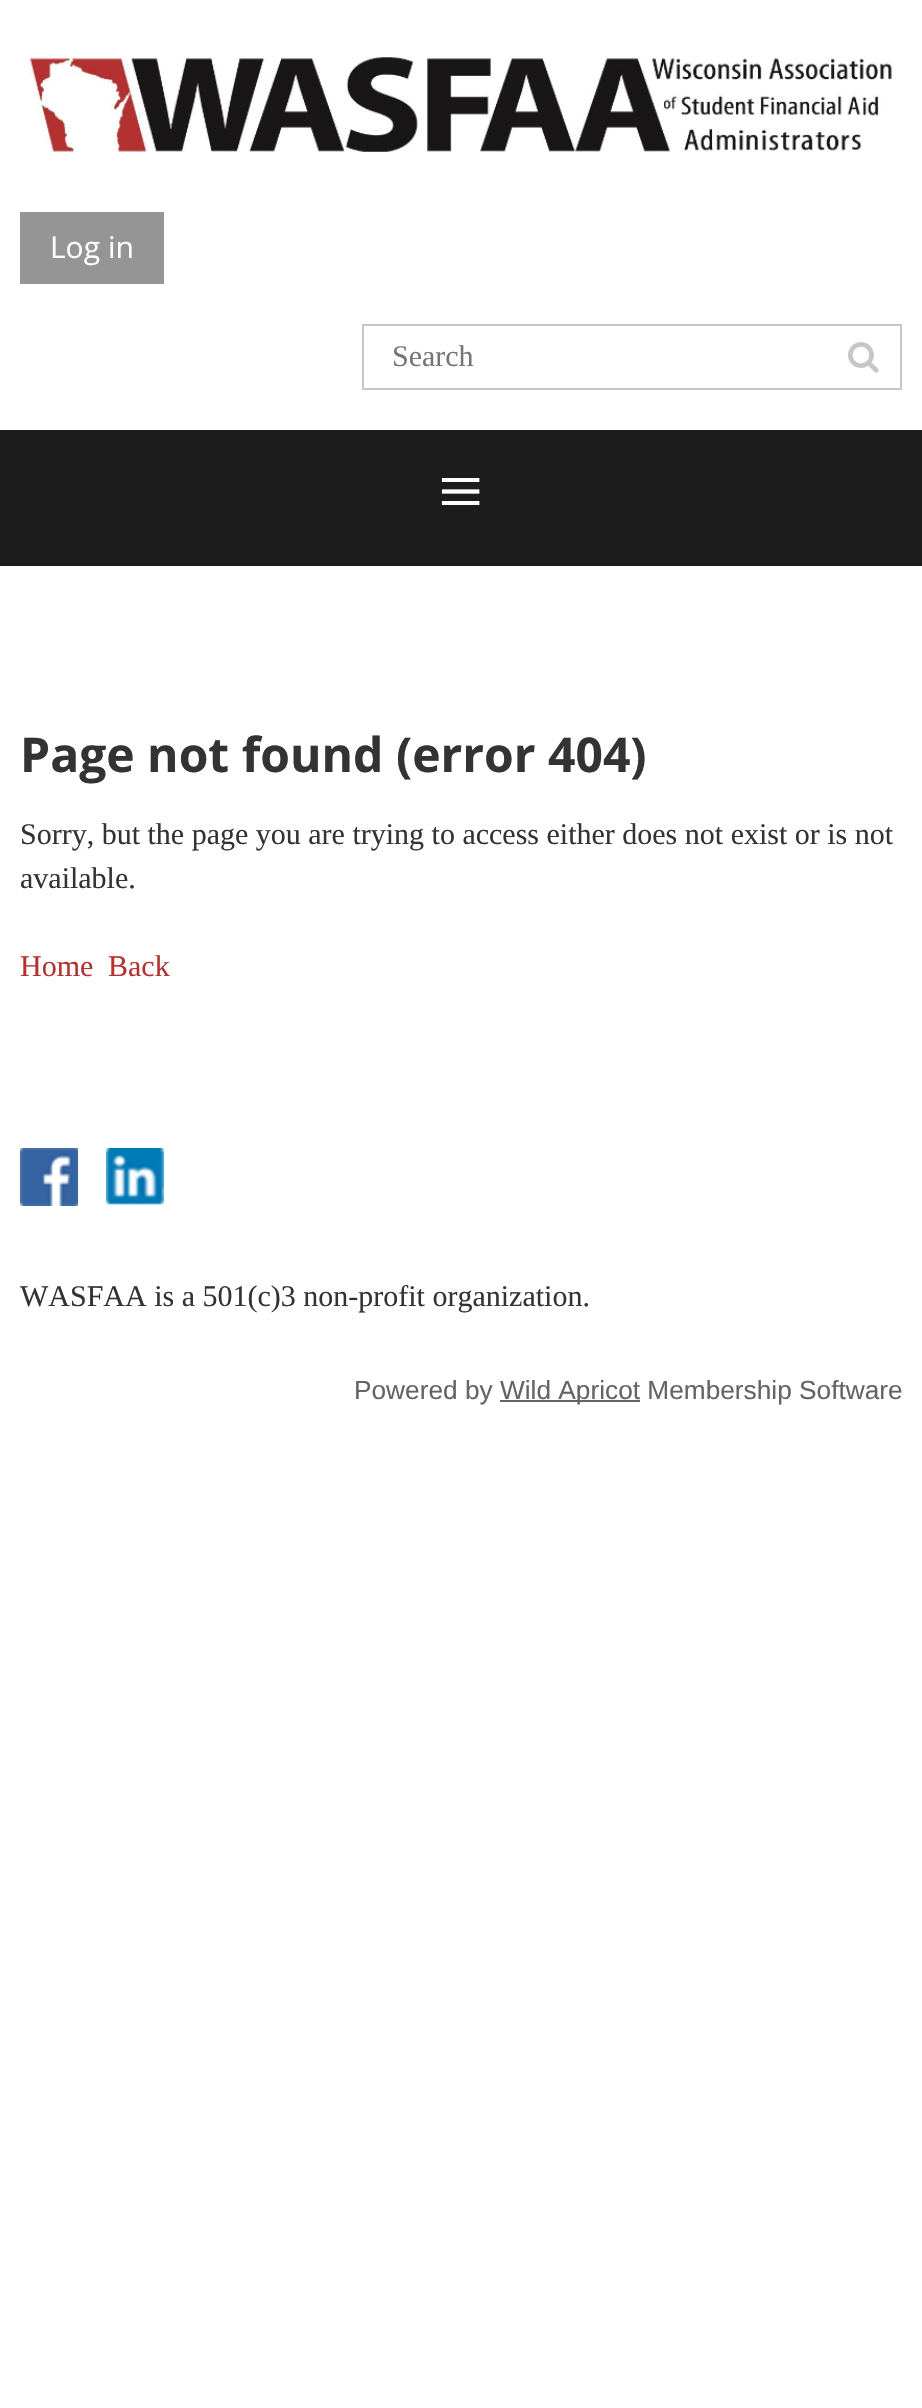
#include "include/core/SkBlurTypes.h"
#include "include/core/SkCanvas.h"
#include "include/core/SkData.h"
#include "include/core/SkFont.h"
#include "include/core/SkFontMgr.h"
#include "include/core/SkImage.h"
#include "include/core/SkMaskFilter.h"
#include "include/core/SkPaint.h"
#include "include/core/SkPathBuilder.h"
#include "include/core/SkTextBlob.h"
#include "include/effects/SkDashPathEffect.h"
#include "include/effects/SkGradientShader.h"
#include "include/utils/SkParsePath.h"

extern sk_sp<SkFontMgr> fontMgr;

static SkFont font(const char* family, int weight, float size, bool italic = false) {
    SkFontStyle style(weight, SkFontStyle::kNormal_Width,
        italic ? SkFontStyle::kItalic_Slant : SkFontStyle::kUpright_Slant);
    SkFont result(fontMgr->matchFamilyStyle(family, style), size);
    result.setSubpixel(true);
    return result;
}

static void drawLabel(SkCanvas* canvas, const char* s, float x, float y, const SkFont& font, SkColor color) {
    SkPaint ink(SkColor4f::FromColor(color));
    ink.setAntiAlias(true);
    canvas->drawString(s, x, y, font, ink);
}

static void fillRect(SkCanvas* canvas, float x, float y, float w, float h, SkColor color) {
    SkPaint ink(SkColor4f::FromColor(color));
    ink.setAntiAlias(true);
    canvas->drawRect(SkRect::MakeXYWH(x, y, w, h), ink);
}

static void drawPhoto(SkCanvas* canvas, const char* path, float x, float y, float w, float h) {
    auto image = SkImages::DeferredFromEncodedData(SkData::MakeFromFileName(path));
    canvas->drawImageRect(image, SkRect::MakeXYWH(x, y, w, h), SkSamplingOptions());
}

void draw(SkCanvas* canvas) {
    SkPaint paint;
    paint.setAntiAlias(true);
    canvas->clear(0xFFFFFFFF);
    drawPhoto(canvas, "assets/img1.png", 29, 57, 865, 95);
    fillRect(canvas, 20, 212, 144, 72, 0xFF959595);
    SkFont font1 = font("Open Sans", 400, 30);
    drawLabel(canvas, "Log in", 50, 258, font1, 0xFFFFFFFF);
    paint.setStroke(true);
    paint.setStrokeWidth(2);
    paint.setColor(0xFFC6C6C6);
    canvas->drawRect(SkRect::MakeXYWH(363, 325, 538, 64), paint);
    SkFont font2 = font("Liberation Serif", 400, 30);
    drawLabel(canvas, "Search", 392, 366, font2, 0xFF757575);
    drawPhoto(canvas, "assets/img2.png", 848, 342, 31, 31);
    fillRect(canvas, 0, 430, 922, 136, 0xFF1C1C1C);
    SkFont font3 = font("Liberation Serif", 400, 80);
    drawLabel(canvas, "≡", 438, 518, font3, 0xFFFFFFFF);
    SkFont font4 = font("Open Sans", 700, 48);
    drawLabel(canvas, "Page not found (error 404)", 20, 772, font4, 0xFF333333);
    drawLabel(canvas, "Sorry, but the page you are trying to access either does not exist or is not", 20, 844, font2, 0xFF333333);
    drawLabel(canvas, "available.", 20, 888, font2, 0xFF333333);
    drawLabel(canvas, "Home", 20, 976, font2, 0xFFB33130);
    drawLabel(canvas, "Back", 108, 976, font2, 0xFFB33130);
    drawPhoto(canvas, "assets/img3.png", 20, 1148, 58, 58);
    drawPhoto(canvas, "assets/img4.png", 106, 1148, 58, 57);
    drawLabel(canvas, "WASFAA is a 501(c)3 non-profit organization.", 20, 1306, font2, 0xFF333333);
    SkFont font5 = font("Liberation Sans", 400, 26.25f);
    drawLabel(canvas, "Powered by", 354, 1399, font5, 0xFF646464);
    fillRect(canvas, 500, 1400, 140, 2, 0xFF646464);
    drawLabel(canvas, "Wild Apricot Membership Software", 500, 1399, font5, 0xFF646464);
}
